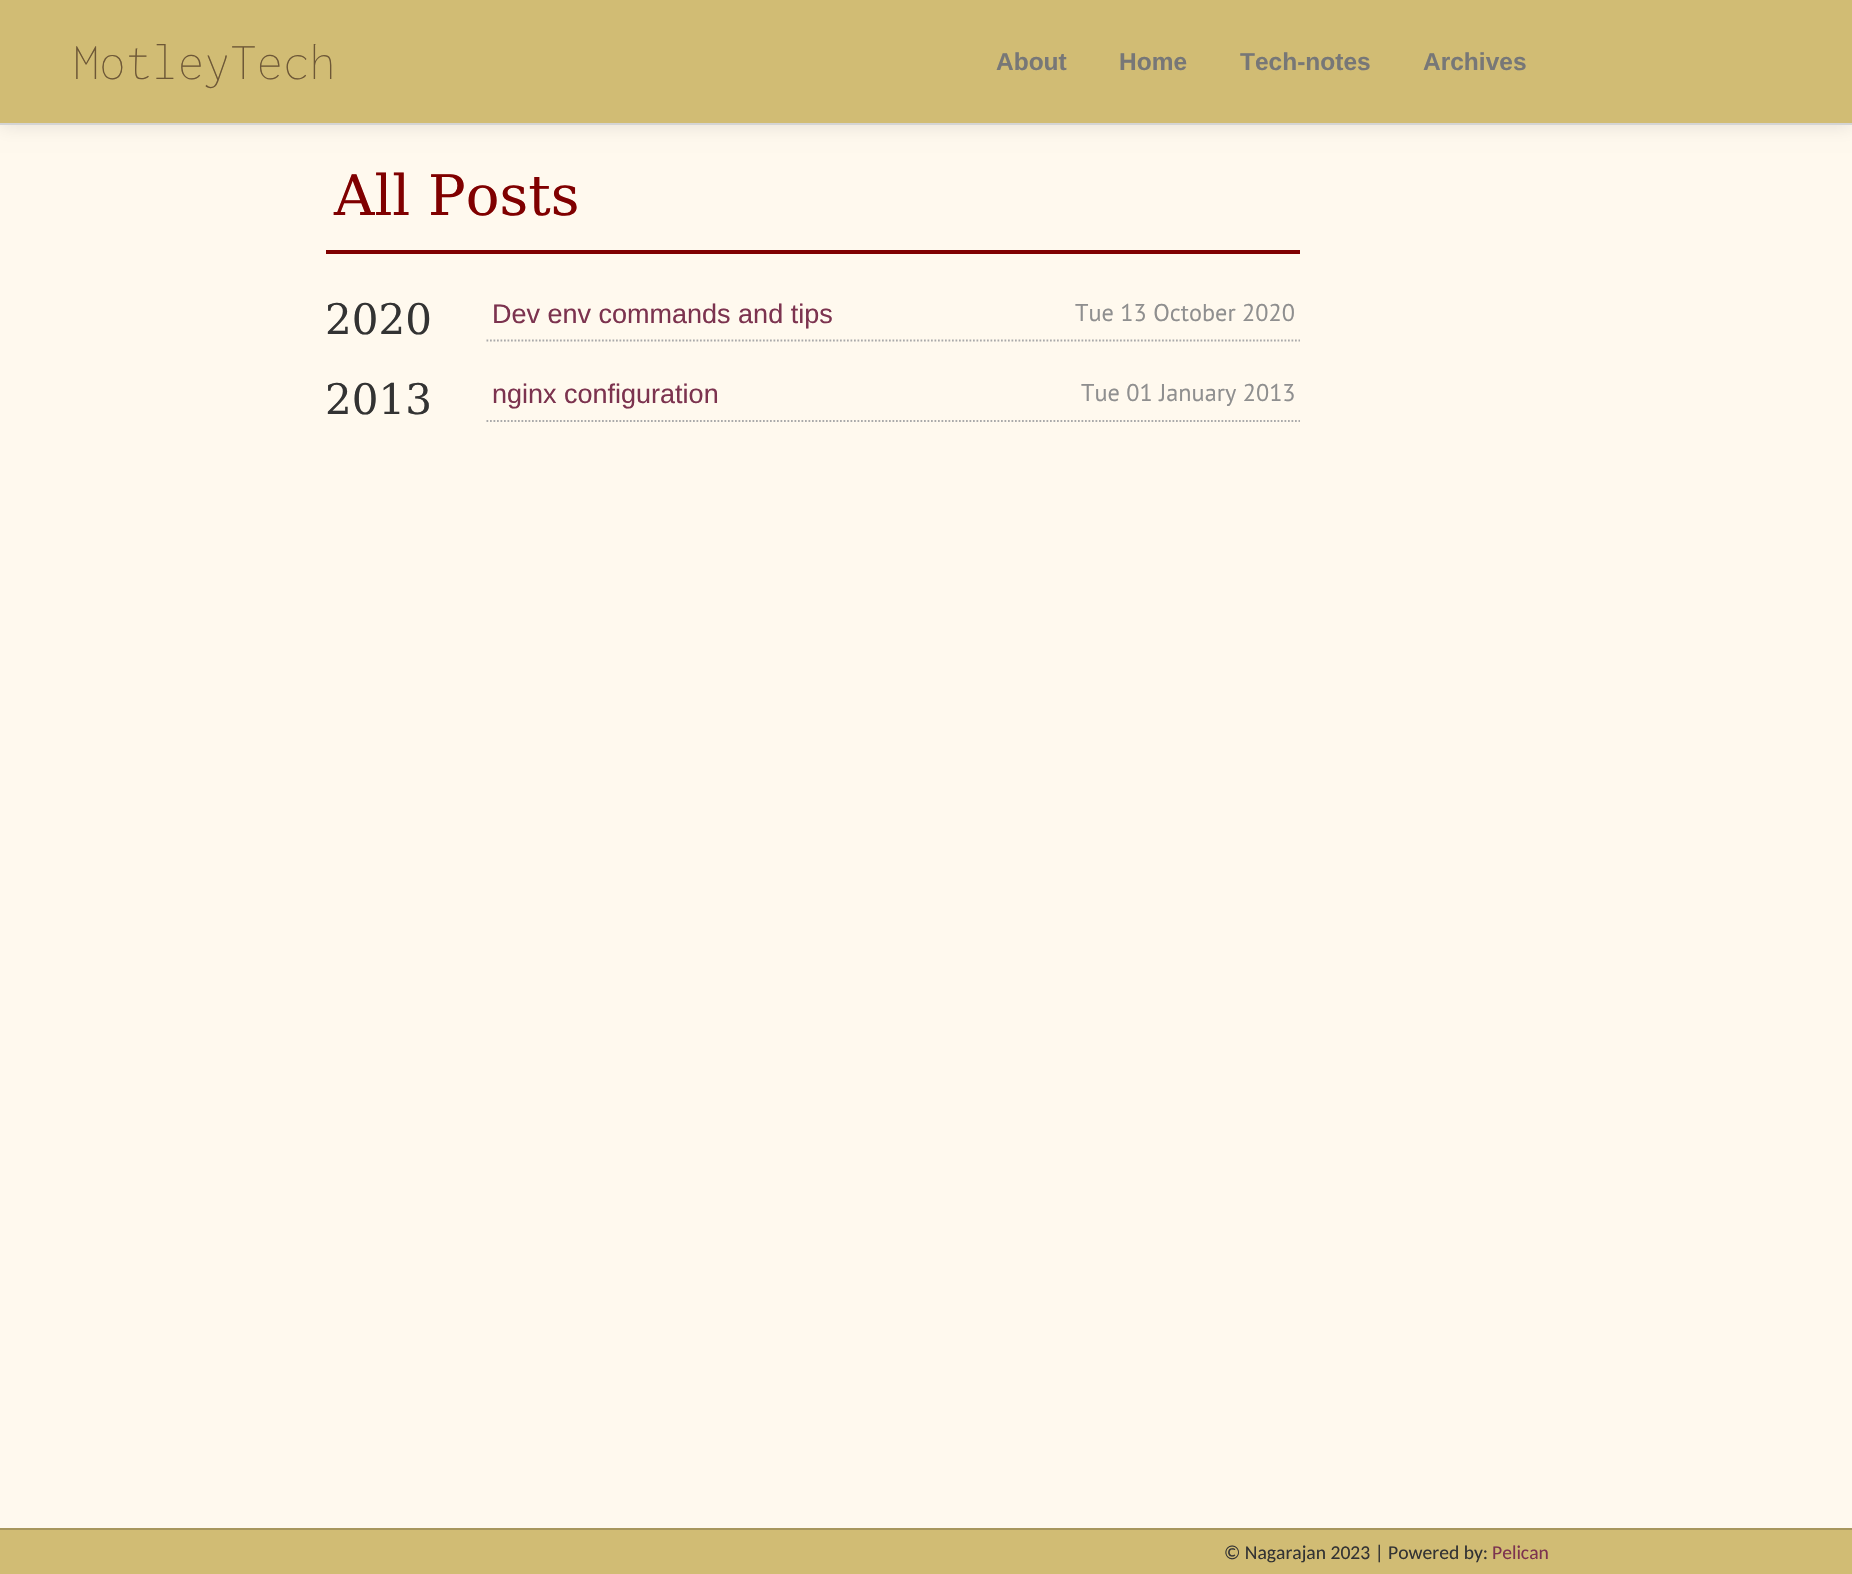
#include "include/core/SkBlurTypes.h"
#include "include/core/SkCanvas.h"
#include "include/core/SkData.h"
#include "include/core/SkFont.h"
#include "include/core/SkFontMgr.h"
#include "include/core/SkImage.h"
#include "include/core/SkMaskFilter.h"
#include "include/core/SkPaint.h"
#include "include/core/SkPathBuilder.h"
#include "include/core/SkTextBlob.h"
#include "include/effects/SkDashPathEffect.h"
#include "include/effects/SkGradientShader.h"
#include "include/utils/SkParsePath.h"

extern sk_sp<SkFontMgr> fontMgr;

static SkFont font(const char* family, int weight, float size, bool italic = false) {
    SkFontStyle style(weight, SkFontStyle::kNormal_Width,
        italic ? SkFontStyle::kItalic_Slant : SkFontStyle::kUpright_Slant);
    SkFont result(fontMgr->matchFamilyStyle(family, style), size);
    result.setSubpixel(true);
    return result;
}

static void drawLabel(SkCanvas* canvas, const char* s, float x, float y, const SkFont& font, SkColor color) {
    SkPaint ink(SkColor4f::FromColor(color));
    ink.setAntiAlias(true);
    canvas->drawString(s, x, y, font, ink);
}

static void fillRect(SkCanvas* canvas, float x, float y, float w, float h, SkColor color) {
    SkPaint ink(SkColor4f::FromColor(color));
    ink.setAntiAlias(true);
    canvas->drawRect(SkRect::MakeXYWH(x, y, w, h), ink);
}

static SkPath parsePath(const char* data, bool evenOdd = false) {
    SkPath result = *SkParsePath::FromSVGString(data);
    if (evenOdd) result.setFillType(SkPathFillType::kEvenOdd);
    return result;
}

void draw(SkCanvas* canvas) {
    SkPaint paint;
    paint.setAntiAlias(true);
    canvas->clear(0xFFFFF9EE);
    paint.setColor(0x1A000000);
    paint.setMaskFilter(SkMaskFilter::MakeBlur(kNormal_SkBlurStyle, 9));
    canvas->drawRect(SkRect::MakeXYWH(0, 2, 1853, 124), paint);
    paint.setMaskFilter(nullptr);
    fillRect(canvas, 0, 0, 1852, 123, 0xFFD1BC74);
    fillRect(canvas, 0, 123, 1852, 2, 0xFFD4D4D4);
    SkFont font1 = font("Inconsolata", 200, 52.5f);
    drawLabel(canvas, "MotleyTech", 73, 79, font1, 0xFF6D5736);
    SkFont font2 = font("Liberation Sans", 700, 24.5f);
    drawLabel(canvas, "About", 996, 70, font2, 0xFF777777);
    drawLabel(canvas, "Home", 1119, 70, font2, 0xFF777777);
    drawLabel(canvas, "Tech-notes", 1240, 70, font2, 0xFF777777);
    drawLabel(canvas, "Archives", 1423, 70, font2, 0xFF777777);
    fillRect(canvas, 326, 250, 974, 4, 0xFF800000);
    SkFont font3 = font("DejaVu Serif", 400, 56);
    drawLabel(canvas, "All Posts", 334, 215, font3, 0xFF800000);
    SkFont font4 = font("DejaVu Serif", 400, 42);
    drawLabel(canvas, "2020", 325, 334, font4, 0xFF333333);
    paint.setStroke(true);
    paint.setStrokeWidth(1.8f);
    paint.setColor(0xFFAAAAAA);
    paint.setPathEffect(SkDashPathEffect::Make({{1.75f, 1.75f}}, 0));
    canvas->drawPath(parsePath("M486.5 340.5H1300"), paint);
    paint.setPathEffect(nullptr);
    SkFont font5 = font("Liberation Sans", 400, 27);
    drawLabel(canvas, "Dev env commands and tips", 492, 323, font5, 0xFF7C334F);
    SkFont font6 = font("PT Sans", 400, 24.25f);
    drawLabel(canvas, "Tue 13 October 2020", 1075, 321, font6, 0xFF8F8F8F);
    drawLabel(canvas, "2013", 325, 414, font4, 0xFF333333);
    paint.setPathEffect(SkDashPathEffect::Make({{1.75f, 1.75f}}, 0));
    canvas->drawPath(parsePath("M486.5 421H1300"), paint);
    paint.setPathEffect(nullptr);
    drawLabel(canvas, "nginx configuration", 492, 403, font5, 0xFF7C334F);
    drawLabel(canvas, "Tue 01 January 2013", 1081, 401, font6, 0xFF8F8F8F);
    fillRect(canvas, 0, 1530, 1852, 44, 0xFFD1BC74);
    fillRect(canvas, 0, 1528, 1852, 2, 0xFFA7965D);
    SkFont font7 = font("Carlito", 400, 19.6f);
    drawLabel(canvas, "© Nagarajan 2023 | Powered by:", 1224, 1559, font7, 0xFF333333);
    drawLabel(canvas, "Pelican", 1492, 1559, font7, 0xFF7C334F);
}
